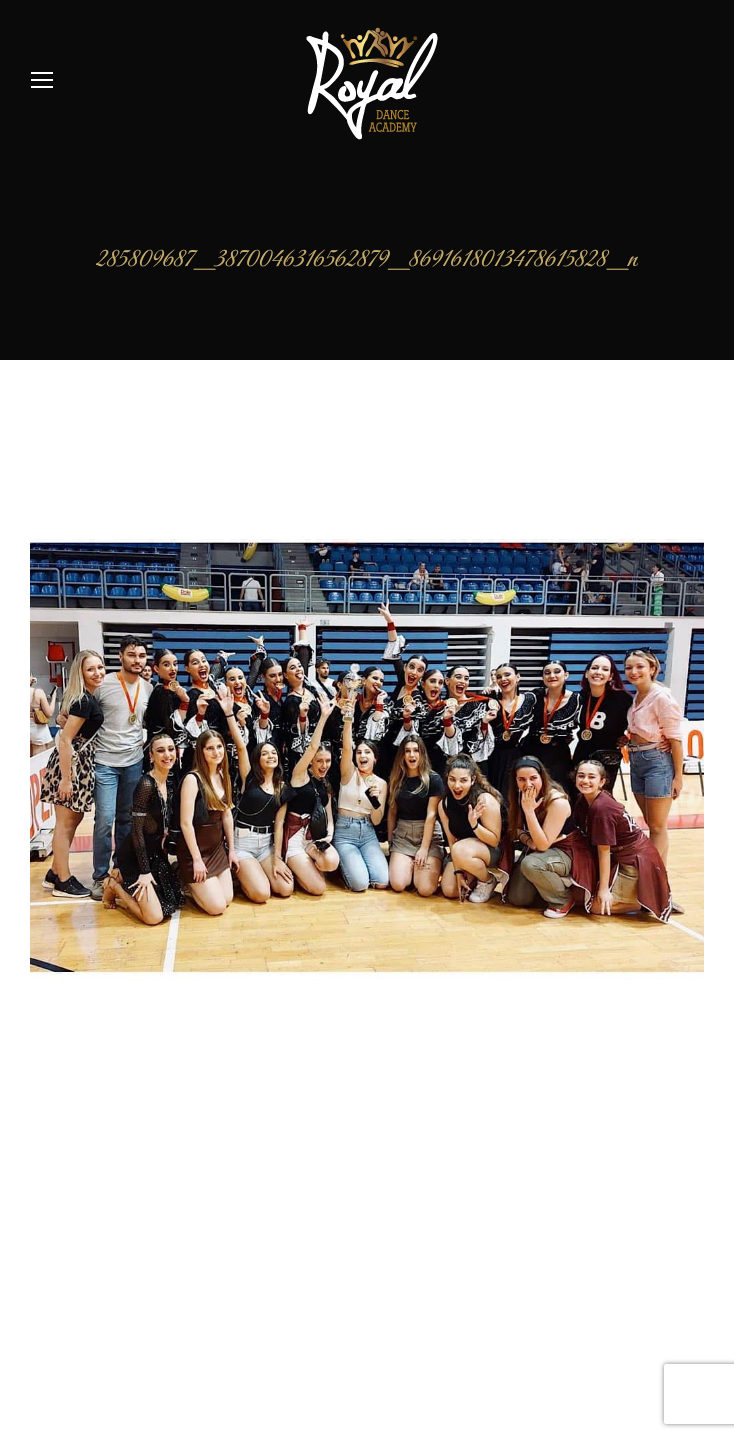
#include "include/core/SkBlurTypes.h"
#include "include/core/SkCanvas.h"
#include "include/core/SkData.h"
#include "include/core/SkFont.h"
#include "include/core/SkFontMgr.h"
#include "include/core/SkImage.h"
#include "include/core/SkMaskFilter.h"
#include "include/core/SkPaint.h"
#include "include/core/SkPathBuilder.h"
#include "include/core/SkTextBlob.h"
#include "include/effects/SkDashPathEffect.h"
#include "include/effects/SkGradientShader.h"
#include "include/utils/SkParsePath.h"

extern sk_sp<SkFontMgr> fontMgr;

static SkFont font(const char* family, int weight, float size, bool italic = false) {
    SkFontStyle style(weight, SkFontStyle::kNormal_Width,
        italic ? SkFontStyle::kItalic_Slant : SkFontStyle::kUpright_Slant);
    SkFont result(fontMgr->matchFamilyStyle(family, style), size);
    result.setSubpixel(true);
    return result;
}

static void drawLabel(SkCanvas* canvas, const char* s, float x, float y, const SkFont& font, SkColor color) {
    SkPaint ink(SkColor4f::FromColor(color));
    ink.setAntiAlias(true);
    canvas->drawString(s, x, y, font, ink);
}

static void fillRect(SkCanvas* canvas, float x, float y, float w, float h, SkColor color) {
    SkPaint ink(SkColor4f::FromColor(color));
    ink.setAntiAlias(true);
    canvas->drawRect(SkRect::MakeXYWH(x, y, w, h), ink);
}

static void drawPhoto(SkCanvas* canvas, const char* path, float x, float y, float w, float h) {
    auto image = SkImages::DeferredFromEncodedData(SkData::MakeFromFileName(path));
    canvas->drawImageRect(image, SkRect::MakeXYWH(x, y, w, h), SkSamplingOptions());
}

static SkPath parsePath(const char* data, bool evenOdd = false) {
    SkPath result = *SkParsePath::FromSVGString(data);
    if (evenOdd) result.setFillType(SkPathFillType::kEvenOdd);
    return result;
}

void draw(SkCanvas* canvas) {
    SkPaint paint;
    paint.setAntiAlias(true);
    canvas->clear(0xFFFFFFFF);
    fillRect(canvas, 0, 0, 734, 360, 0xFF0A0A0A);
    fillRect(canvas, 31, 72, 22, 2, 0xFFFFFFFF);
    fillRect(canvas, 31, 79, 22, 2, 0xFFFFFFFF);
    fillRect(canvas, 31, 86, 22, 2, 0xFFFFFFFF);
    drawPhoto(canvas, "assets/img1.png", 306, 27, 132, 113);
    canvas->save();
    canvas->clipRect(SkRect::MakeXYWH(96, 241, 542, 38));
    SkFont font1 = font("Great Vibes", 400, 28);
    drawLabel(canvas, "285809687_3870046316562879_8691618013478615828_n", 96, 266, font1, 0xFFC5AB6B);
    canvas->restore();
    drawPhoto(canvas, "assets/img2.png", 30, 538, 674, 443);
    canvas->save();
    canvas->clipPath(parsePath("M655 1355H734V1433H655ZM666 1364H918C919 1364 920 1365 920 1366V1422C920 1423 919 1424 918 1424H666C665 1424 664 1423 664 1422V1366C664 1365 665 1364 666 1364Z", true), true);
    paint.setColor(0xFF808080);
    paint.setMaskFilter(SkMaskFilter::MakeBlur(kNormal_SkBlurStyle, 2.5f));
    canvas->drawRoundRect(SkRect::MakeXYWH(664, 1364, 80, 60), 2, 2, paint);
    paint.setMaskFilter(nullptr);
    canvas->restore();
}
